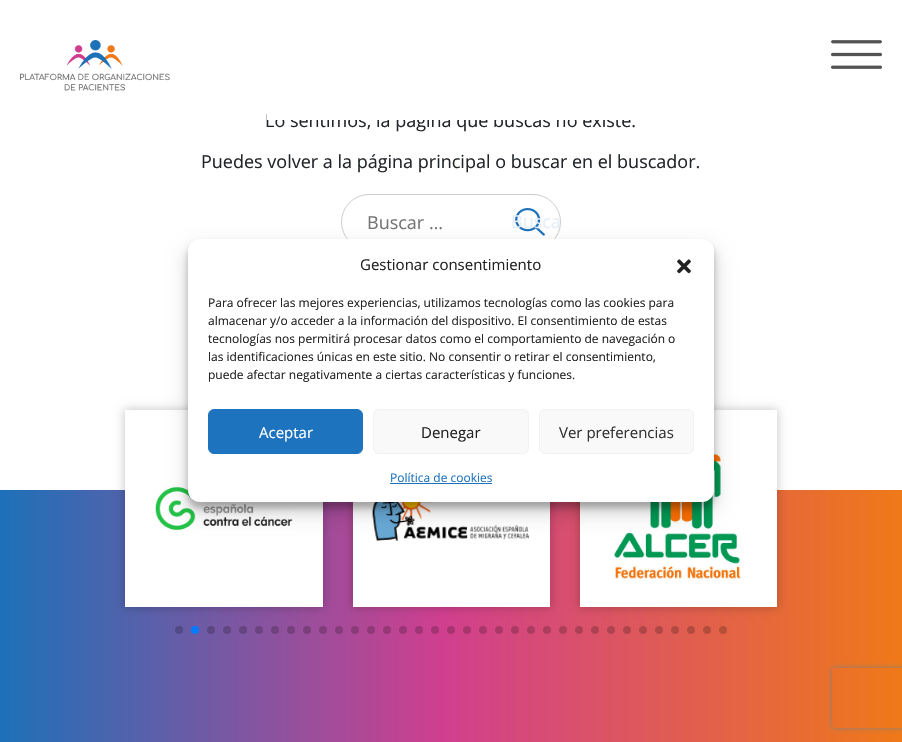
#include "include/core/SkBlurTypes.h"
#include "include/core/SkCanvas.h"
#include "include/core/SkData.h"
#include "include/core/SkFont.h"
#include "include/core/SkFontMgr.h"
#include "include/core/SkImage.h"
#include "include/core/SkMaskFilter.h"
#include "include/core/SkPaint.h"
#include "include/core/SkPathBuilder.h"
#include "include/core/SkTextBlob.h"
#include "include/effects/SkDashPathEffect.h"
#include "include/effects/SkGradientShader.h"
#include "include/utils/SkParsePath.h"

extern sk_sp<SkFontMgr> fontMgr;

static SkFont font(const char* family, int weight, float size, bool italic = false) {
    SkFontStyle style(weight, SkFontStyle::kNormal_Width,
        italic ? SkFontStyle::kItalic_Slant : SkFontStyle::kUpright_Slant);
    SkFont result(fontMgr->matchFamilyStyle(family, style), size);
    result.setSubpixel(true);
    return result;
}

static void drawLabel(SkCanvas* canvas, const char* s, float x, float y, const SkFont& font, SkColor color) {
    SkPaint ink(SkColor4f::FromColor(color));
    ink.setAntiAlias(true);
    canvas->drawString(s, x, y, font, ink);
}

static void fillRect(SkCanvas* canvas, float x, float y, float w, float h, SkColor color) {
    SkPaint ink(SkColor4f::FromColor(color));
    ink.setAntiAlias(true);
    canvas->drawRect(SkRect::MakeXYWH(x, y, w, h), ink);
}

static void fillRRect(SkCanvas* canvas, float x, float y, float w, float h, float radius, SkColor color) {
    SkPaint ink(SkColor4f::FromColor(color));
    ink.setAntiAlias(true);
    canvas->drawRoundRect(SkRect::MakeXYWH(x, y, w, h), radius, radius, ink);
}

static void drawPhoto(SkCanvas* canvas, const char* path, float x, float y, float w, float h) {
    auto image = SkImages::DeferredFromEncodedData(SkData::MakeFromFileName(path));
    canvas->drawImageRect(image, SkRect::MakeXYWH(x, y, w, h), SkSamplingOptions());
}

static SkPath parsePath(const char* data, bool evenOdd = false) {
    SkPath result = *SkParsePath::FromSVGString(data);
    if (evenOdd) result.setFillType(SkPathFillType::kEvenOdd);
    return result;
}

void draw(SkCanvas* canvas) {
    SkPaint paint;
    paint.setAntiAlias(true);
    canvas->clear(0xFFFFFFFF);
    SkFont font1 = font("Open Sans", 400, 18);
    drawLabel(canvas, "Lo sentimos, la página que buscas no existe.", 265, 127, font1, 0xFF212529);
    fillRect(canvas, 267, 113, 364, 7, 0xFFFFFFFF);
    drawPhoto(canvas, "assets/img1.png", 20, 40, 150, 51);
    drawPhoto(canvas, "assets/img2.png", 831, 40, 51, 29);
    drawLabel(canvas, "Puedes volver a la página principal o buscar en el buscador.", 201, 168, font1, 0xFF212529);
    paint.setStroke(true);
    paint.setStrokeWidth(1);
    paint.setColor(0xFFCCCCCC);
    canvas->drawRoundRect(SkRect::MakeXYWH(341.5f, 194.5f, 219, 55), 27.5f, 27.5f, paint);
    drawLabel(canvas, "Buscar …", 367, 229, font1, 0xFF757575);
    drawPhoto(canvas, "assets/img3.png", 515, 208, 30, 28);
    drawLabel(canvas, "Busca", 511, 228, font1, 0xFFE6EFF7);
    paint.setStroke(false);
    {
        const SkColor colors[] = {0xFFEF7918, 0xFFD03F8F, 0xFF1D71B8};
        const float stops[] = {0, 0.51f, 1};
        const SkPoint ends[] = {{902, 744}, {0, 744}};
        paint.setShader(SkGradientShader::MakeLinear(ends, colors, stops, 3, SkTileMode::kClamp));
        paint.setAlpha(255);
    }
    canvas->drawRect(SkRect::MakeXYWH(0, 490, 902, 252), paint);
    paint.setShader(nullptr);
    paint.setColor(0x33000000);
    paint.setMaskFilter(SkMaskFilter::MakeBlur(kNormal_SkBlurStyle, 4.5f));
    canvas->drawRect(SkRect::MakeXYWH(124, 409, 200, 199), paint);
    paint.setMaskFilter(nullptr);
    fillRect(canvas, 125, 410, 198, 197, 0xFFFFFFFF);
    drawPhoto(canvas, "assets/img5.png", 155, 486, 138, 45);
    paint.setMaskFilter(SkMaskFilter::MakeBlur(kNormal_SkBlurStyle, 4.5f));
    canvas->drawRect(SkRect::MakeXYWH(352, 409, 199, 199), paint);
    paint.setMaskFilter(nullptr);
    fillRect(canvas, 353, 502, 197, 105, 0xFFFFFFFF);
    drawPhoto(canvas, "assets/img6.png", 372, 502, 157, 39);
    paint.setMaskFilter(SkMaskFilter::MakeBlur(kNormal_SkBlurStyle, 4.5f));
    canvas->drawRect(SkRect::MakeXYWH(579, 409, 199, 199), paint);
    paint.setMaskFilter(nullptr);
    fillRect(canvas, 580, 410, 197, 197, 0xFFFFFFFF);
    drawPhoto(canvas, "assets/img7.png", 613, 433, 128, 148);
    paint.setColor(0x3B000000);
    paint.setMaskFilter(SkMaskFilter::MakeBlur(kNormal_SkBlurStyle, 3));
    canvas->drawRoundRect(SkRect::MakeXYWH(188, 245, 526, 263), 12, 12, paint);
    paint.setMaskFilter(nullptr);
    paint.setColor(0x30000000);
    paint.setMaskFilter(SkMaskFilter::MakeBlur(kNormal_SkBlurStyle, 10));
    canvas->drawRoundRect(SkRect::MakeXYWH(188, 249, 526, 263), 12, 12, paint);
    paint.setMaskFilter(nullptr);
    fillRRect(canvas, 188, 239, 526, 263, 12, 0xFFFFFFFF);
    SkFont font2 = font("Open Sans", 400, 15);
    drawLabel(canvas, "Gestionar consentimiento", 360, 270, font2, 0xFF222222);
    drawPhoto(canvas, "assets/img4.png", 677, 259, 14, 15);
    SkFont font3 = font("Open Sans", 400, 12);
    drawLabel(canvas, "Para ofrecer las mejores experiencias, utilizamos tecnologías como las cookies para", 208, 307, font3, 0xFF222222);
    drawLabel(canvas, "almacenar y/o acceder a la información del dispositivo. El consentimiento de estas", 208, 325, font3, 0xFF222222);
    drawLabel(canvas, "tecnologías nos permitirá procesar datos como el comportamiento de navegación o", 208, 343, font3, 0xFF222222);
    drawLabel(canvas, "las identificaciones únicas en este sitio. No consentir o retirar el consentimiento,", 208, 361, font3, 0xFF222222);
    drawLabel(canvas, "puede afectar negativamente a ciertas características y funciones.", 208, 379, font3, 0xFF222222);
    paint.setColor(0xFF1E73BE);
    canvas->drawRoundRect(SkRect::MakeXYWH(208.5f, 409.5f, 154, 44), 5.5f, 5.5f, paint);
    paint.setStroke(true);
    canvas->drawRoundRect(SkRect::MakeXYWH(208.5f, 409.5f, 154, 44), 5.5f, 5.5f, paint);
    drawLabel(canvas, "Aceptar", 259, 438, font2, 0xFFFFFFFF);
    paint.setStroke(false);
    paint.setColor(0xFFF9F9F9);
    canvas->drawRoundRect(SkRect::MakeXYWH(373.5f, 409.5f, 155, 44), 5.5f, 5.5f, paint);
    paint.setStroke(true);
    paint.setColor(0xFFF2F2F2);
    canvas->drawRoundRect(SkRect::MakeXYWH(373.5f, 409.5f, 155, 44), 5.5f, 5.5f, paint);
    drawLabel(canvas, "Denegar", 421, 438, font2, 0xFF222222);
    paint.setStroke(false);
    paint.setColor(0xFFF9F9F9);
    canvas->drawRoundRect(SkRect::MakeXYWH(539.5f, 409.5f, 154, 44), 5.5f, 5.5f, paint);
    paint.setStroke(true);
    paint.setColor(0xFFF2F2F2);
    canvas->drawRoundRect(SkRect::MakeXYWH(539.5f, 409.5f, 154, 44), 5.5f, 5.5f, paint);
    drawLabel(canvas, "Ver preferencias", 559, 438, font2, 0xFF333333);
    drawLabel(canvas, "Política de cookies", 390, 482, font3, 0xFF1E73BE);
    fillRect(canvas, 390, 483, 102, 1, 0xFF1E73BE);
    paint.setStroke(false);
    paint.setColor(0x33000000);
    canvas->drawCircle(179, 630, 4, paint);
    paint.setColor(0xFF007AFF);
    canvas->drawCircle(195, 630, 4, paint);
    paint.setColor(0x33000000);
    canvas->drawCircle(211, 630, 4, paint);
    paint.setColor(0xFF614682);
    canvas->drawCircle(227, 630, 4, paint);
    paint.setColor(0x33000000);
    canvas->drawCircle(243, 630, 4, paint);
    canvas->drawCircle(259, 630, 4, paint);
    canvas->drawCircle(275, 630, 4, paint);
    canvas->drawCircle(291, 630, 4, paint);
    canvas->drawCircle(307, 630, 4, paint);
    canvas->drawCircle(323, 630, 4, paint);
    canvas->drawCircle(339, 630, 4, paint);
    canvas->drawCircle(355, 630, 4, paint);
    canvas->drawCircle(371, 630, 4, paint);
    canvas->drawCircle(387, 630, 4, paint);
    canvas->drawCircle(403, 630, 4, paint);
    canvas->drawCircle(419, 630, 4, paint);
    canvas->drawCircle(435, 630, 4, paint);
    paint.setColor(0xFFA73371);
    canvas->drawCircle(451, 630, 4, paint);
    paint.setColor(0xFFA8356D);
    canvas->drawCircle(467, 630, 4, paint);
    paint.setColor(0xFFA9366A);
    canvas->drawCircle(483, 630, 4, paint);
    paint.setColor(0xFFAA3867);
    canvas->drawCircle(499, 630, 4, paint);
    paint.setColor(0xFFAA3A63);
    canvas->drawCircle(515, 630, 4, paint);
    paint.setColor(0xFFAB3B60);
    canvas->drawCircle(531, 630, 4, paint);
    paint.setColor(0xFFAC3D5D);
    canvas->drawCircle(547, 630, 4, paint);
    paint.setColor(0xFFAD3F59);
    canvas->drawCircle(563, 630, 4, paint);
    paint.setColor(0xFFAE4056);
    canvas->drawCircle(579, 630, 4, paint);
    paint.setColor(0xFFAE4253);
    canvas->drawCircle(595, 630, 4, paint);
    paint.setColor(0xFFAF434F);
    canvas->drawCircle(611, 630, 4, paint);
    paint.setColor(0xFFB0454C);
    canvas->drawCircle(627, 630, 4, paint);
    paint.setColor(0xFFB14749);
    canvas->drawCircle(643, 630, 4, paint);
    paint.setColor(0xFFB24845);
    canvas->drawCircle(659, 630, 4, paint);
    paint.setColor(0xFFB34A42);
    canvas->drawCircle(675, 630, 4, paint);
    paint.setColor(0xFFB44B3F);
    canvas->drawCircle(691, 630, 4, paint);
    paint.setColor(0xFFB54D3C);
    canvas->drawCircle(707, 630, 4, paint);
    paint.setColor(0xFFB64F38);
    canvas->drawCircle(723, 630, 4, paint);
    canvas->save();
    canvas->clipPath(parsePath("M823 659H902V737H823ZM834 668H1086C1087 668 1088 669 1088 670V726C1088 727 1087 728 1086 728H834C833 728 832 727 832 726V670C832 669 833 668 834 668Z", true), true);
    paint.setColor(0xFF808080);
    paint.setMaskFilter(SkMaskFilter::MakeBlur(kNormal_SkBlurStyle, 2.5f));
    canvas->drawRoundRect(SkRect::MakeXYWH(832, 668, 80, 60), 2, 2, paint);
    paint.setMaskFilter(nullptr);
    canvas->restore();
}
